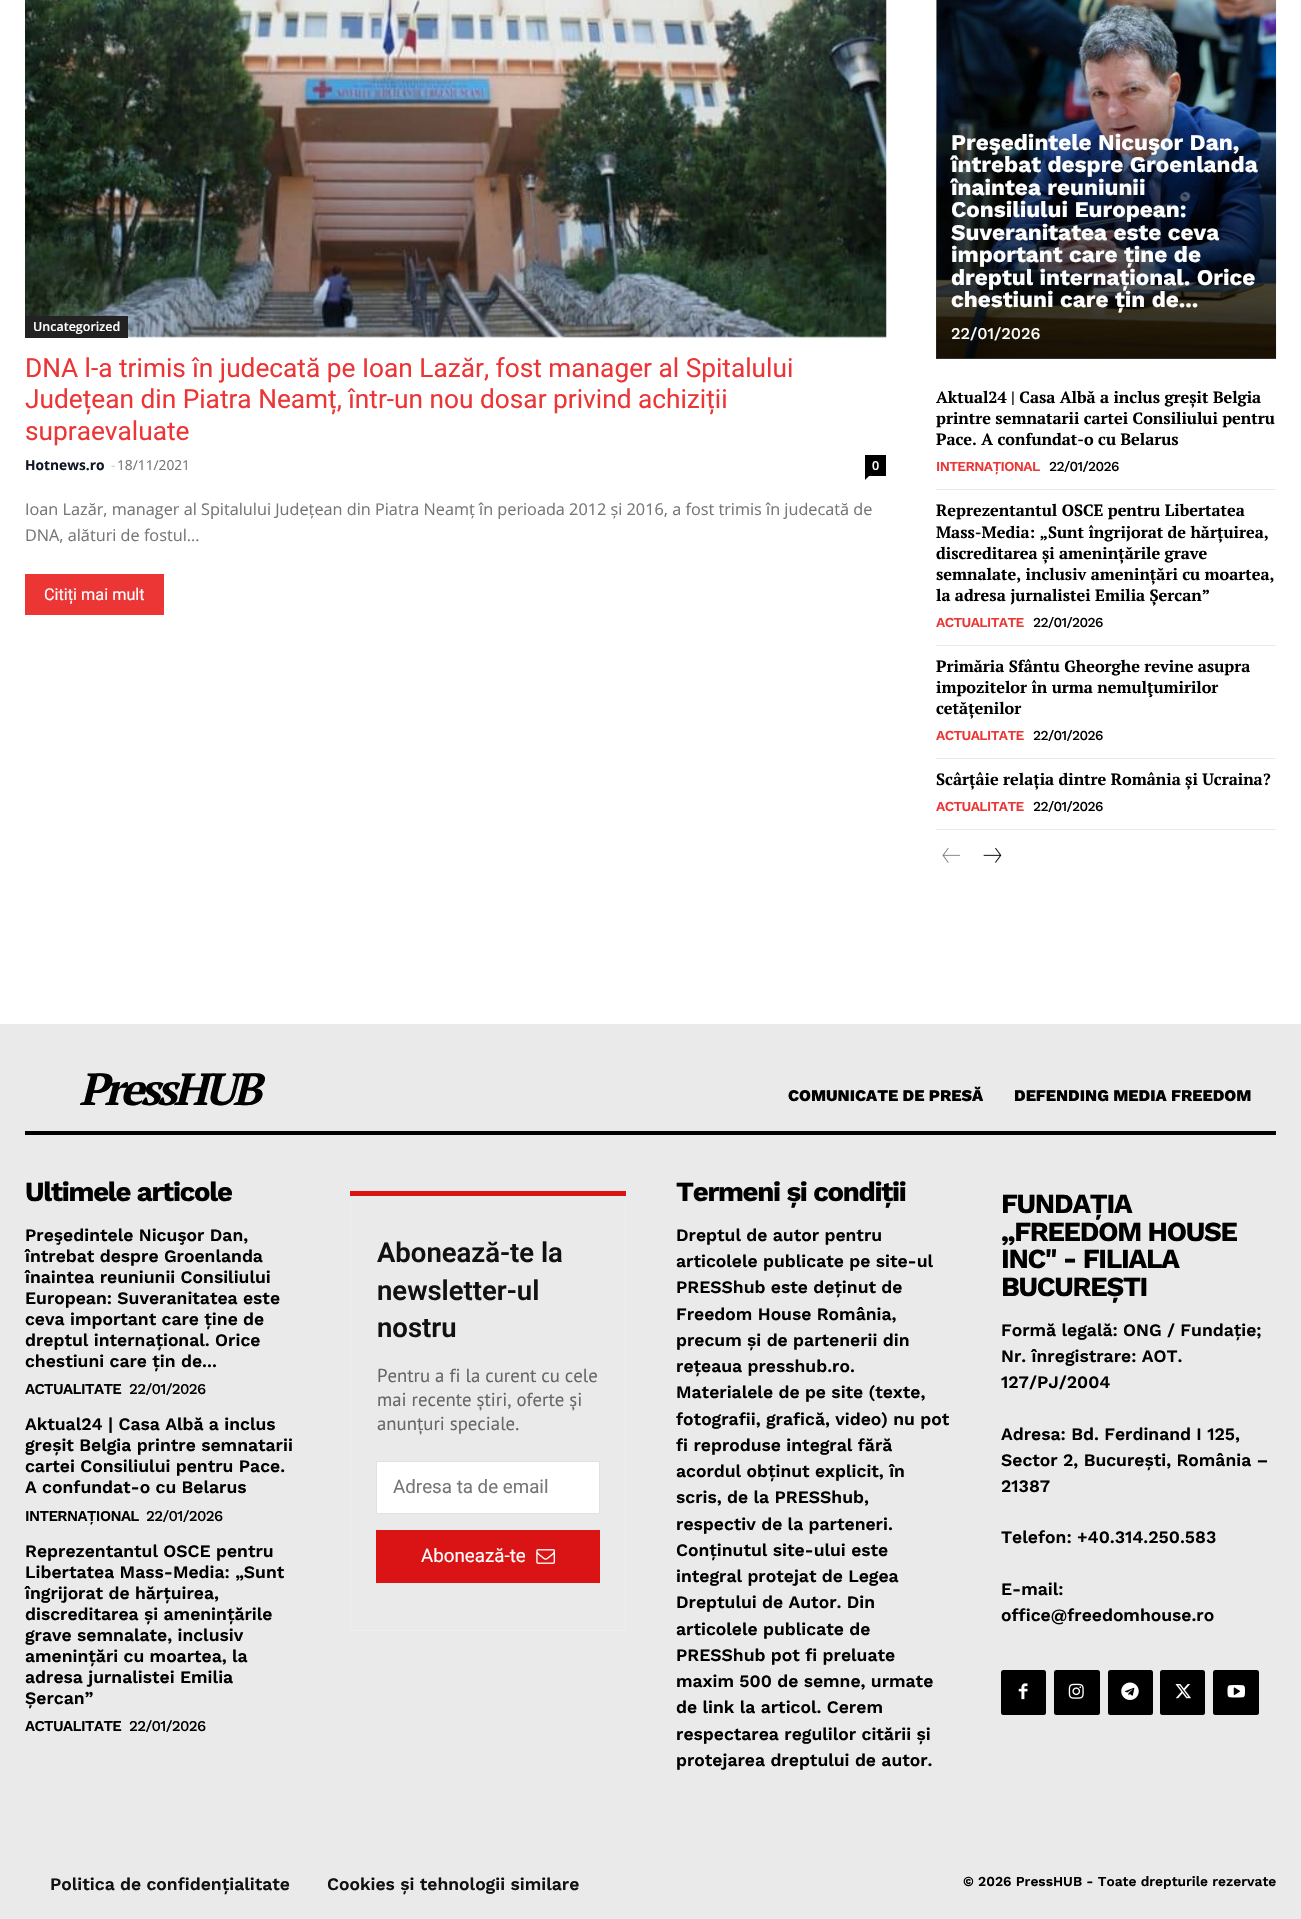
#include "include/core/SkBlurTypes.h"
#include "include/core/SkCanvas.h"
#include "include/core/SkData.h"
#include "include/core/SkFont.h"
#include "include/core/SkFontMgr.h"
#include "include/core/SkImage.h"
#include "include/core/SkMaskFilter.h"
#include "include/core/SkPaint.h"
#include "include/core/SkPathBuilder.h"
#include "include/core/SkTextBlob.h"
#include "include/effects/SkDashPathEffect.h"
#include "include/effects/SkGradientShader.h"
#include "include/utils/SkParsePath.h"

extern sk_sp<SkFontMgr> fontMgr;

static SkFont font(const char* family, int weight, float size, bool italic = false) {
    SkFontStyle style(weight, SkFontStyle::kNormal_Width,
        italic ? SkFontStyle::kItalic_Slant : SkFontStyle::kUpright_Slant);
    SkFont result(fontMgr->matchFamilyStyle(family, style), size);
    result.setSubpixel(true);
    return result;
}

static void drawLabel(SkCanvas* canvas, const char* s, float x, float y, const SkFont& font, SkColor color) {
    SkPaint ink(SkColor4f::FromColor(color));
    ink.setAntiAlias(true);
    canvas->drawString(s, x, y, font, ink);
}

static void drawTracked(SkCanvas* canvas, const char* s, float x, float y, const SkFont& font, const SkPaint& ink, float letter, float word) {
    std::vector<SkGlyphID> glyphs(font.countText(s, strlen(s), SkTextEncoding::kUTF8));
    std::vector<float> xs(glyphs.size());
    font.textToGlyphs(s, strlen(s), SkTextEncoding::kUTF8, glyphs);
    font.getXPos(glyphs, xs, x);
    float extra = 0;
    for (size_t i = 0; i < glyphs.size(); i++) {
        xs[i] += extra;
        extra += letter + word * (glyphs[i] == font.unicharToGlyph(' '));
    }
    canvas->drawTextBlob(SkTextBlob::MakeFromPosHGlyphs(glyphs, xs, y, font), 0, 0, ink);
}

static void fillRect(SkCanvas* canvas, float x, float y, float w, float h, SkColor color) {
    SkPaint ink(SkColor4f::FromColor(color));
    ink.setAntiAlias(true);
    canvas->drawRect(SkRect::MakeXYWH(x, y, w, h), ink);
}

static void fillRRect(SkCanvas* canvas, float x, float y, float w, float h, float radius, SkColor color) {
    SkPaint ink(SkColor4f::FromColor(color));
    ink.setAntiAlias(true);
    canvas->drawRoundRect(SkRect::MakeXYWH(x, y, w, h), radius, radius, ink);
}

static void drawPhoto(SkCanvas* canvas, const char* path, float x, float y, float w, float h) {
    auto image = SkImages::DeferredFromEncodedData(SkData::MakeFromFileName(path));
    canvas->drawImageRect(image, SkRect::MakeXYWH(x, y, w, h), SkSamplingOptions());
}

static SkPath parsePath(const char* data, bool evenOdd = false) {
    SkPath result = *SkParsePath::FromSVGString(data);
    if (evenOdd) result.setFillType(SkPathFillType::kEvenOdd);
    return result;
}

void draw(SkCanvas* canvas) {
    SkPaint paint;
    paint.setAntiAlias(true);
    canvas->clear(0xFFFFFFFF);
    drawPhoto(canvas, "assets/img1.png", 25, 0, 862, 338);
    fillRect(canvas, 25, 316, 103, 22, 0xFF222222);
    SkFont font1 = font("Open Sans", 600, 12.5f);
    drawLabel(canvas, "Uncategorized", 33, 331, font1, 0xFFFFFFFF);
    SkFont font2 = font("Roboto", 400, 26.25f);
    drawLabel(canvas, "DNA l-a trimis în judecată pe Ioan Lazăr, fost manager al Spitalului", 25, 377, font2, 0xFFEC3535);
    drawLabel(canvas, "Județean din Piatra Neamț, într-un nou dosar privind achiziții", 25, 408, font2, 0xFFEC3535);
    drawLabel(canvas, "supraevaluate", 25, 440, font2, 0xFFEC3535);
    SkFont font3 = font("Open Sans", 700, 13.75f);
    drawLabel(canvas, "Hotnews.ro", 25, 470, font3, 0xFF101725);
    SkFont font4 = font("Open Sans", 400, 13.75f);
    drawLabel(canvas, "-", 111, 470, font4, 0xFFCCCCCC);
    drawLabel(canvas, "18/11/2021", 117, 470, font4, 0xFF767676);
    fillRect(canvas, 865, 455, 21, 21, 0xFF000000);
    drawLabel(canvas, "0", 872, 470, font1, 0xFFFFFFFF);
    paint.setColor(0xFF000000);
    canvas->drawPath(parsePath("M865 476H869L865 480Z"), paint);
    SkFont font5 = font("Open Sans", 400, 16.25f);
    drawLabel(canvas, "Ioan Lazăr, manager al Spitalului Județean din Piatra Neamț în perioada 2012 și 2016, a fost trimis în judecată de", 25, 515, font5, 0xFF767676);
    drawLabel(canvas, "DNA, alături de fostul...", 25, 541, font5, 0xFF767676);
    fillRect(canvas, 25, 574, 139, 41, 0xFFEC3535);
    SkFont font6 = font("Roboto", 400, 16.25f);
    drawLabel(canvas, "Citiți mai mult", 44, 600, font6, 0xFFFFFFFF);
    drawPhoto(canvas, "assets/img2.png", 936, 0, 341, 359);
    {
        const SkColor colors[] = {0xCC000000, 0x80000000, 0x00000000, 0x00000000};
        const float stops[] = {0, 0.42f, 0.61f, 1};
        const SkPoint ends[] = {{1106, 359}, {1106, -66}};
        paint.setShader(SkGradientShader::MakeLinear(ends, colors, stops, 4, SkTileMode::kClamp));
        paint.setAlpha(255);
    }
    canvas->drawRect(SkRect::MakeXYWH(936, 103, 340, 256), paint);
    SkFont font7 = font("Work Sans", 700, 22.5f);
    drawLabel(canvas, "Preşedintele Nicuşor Dan,", 951, 150, font7, 0xFFFFFFFF);
    drawLabel(canvas, "întrebat despre Groenlanda", 951, 172, font7, 0xFFFFFFFF);
    drawLabel(canvas, "înaintea reuniunii", 951, 195, font7, 0xFFFFFFFF);
    drawLabel(canvas, "Consiliului European:", 951, 217, font7, 0xFFFFFFFF);
    drawLabel(canvas, "Suveranitatea este ceva", 951, 240, font7, 0xFFFFFFFF);
    drawLabel(canvas, "important care ține de", 951, 262, font7, 0xFFFFFFFF);
    drawLabel(canvas, "dreptul internațional. Orice", 951, 285, font7, 0xFFFFFFFF);
    drawLabel(canvas, "chestiuni care țin de...", 951, 307, font7, 0xFFFFFFFF);
    SkFont font8 = font("Work Sans", 500, 16.25f);
    drawLabel(canvas, "22/01/2026", 951, 339, font8, 0xFFFFFFFF);
    fillRect(canvas, 936, 489, 340, 1, 0xFFEAEAEA);
    SkFont font9 = font("PT Serif", 700, 16.25f);
    drawLabel(canvas, "Aktual24 | Casa Albă a inclus greșit Belgia", 936, 403, font9, 0xFF000000);
    drawLabel(canvas, "printre semnatarii cartei Consiliului pentru", 936, 424, font9, 0xFF000000);
    drawLabel(canvas, "Pace. A confundat-o cu Belarus", 936, 445, font9, 0xFF000000);
    SkFont font10 = font("Work Sans", 600, 13.75f);
    paint.setShader(nullptr);
    paint.setColor(0xFFEC3535);
    drawTracked(canvas, "INTERNAȚIONAL", 936, 471, font10, paint, -0.6f, 0);
    SkFont font11 = font("Work Sans", 500, 13.75f);
    paint.setColor(0xFF000000);
    drawTracked(canvas, "22/01/2026", 1049, 471, font11, paint, -0.6f, 0);
    fillRect(canvas, 936, 645, 340, 1, 0xFFEAEAEA);
    drawLabel(canvas, "Reprezentantul OSCE pentru Libertatea", 936, 516, font9, 0xFF000000);
    drawLabel(canvas, "Mass-Media: „Sunt îngrijorat de hărțuirea,", 936, 538, font9, 0xFF000000);
    drawLabel(canvas, "discreditarea și amenințările grave", 936, 559, font9, 0xFF000000);
    drawLabel(canvas, "semnalate, inclusiv amenințări cu moartea,", 936, 580, font9, 0xFF000000);
    drawLabel(canvas, "la adresa jurnalistei Emilia Șercan”", 936, 601, font9, 0xFF000000);
    paint.setColor(0xFFEC3535);
    drawTracked(canvas, "ACTUALITATE", 936, 627, font10, paint, -0.6f, 0);
    paint.setColor(0xFF000000);
    drawTracked(canvas, "22/01/2026", 1033, 627, font11, paint, -0.6f, 0);
    fillRect(canvas, 936, 758, 340, 1, 0xFFEAEAEA);
    drawLabel(canvas, "Primăria Sfântu Gheorghe revine asupra", 936, 672, font9, 0xFF000000);
    drawLabel(canvas, "impozitelor în urma nemulţumirilor", 936, 693, font9, 0xFF000000);
    drawLabel(canvas, "cetățenilor", 936, 714, font9, 0xFF000000);
    paint.setColor(0xFFEC3535);
    drawTracked(canvas, "ACTUALITATE", 936, 740, font10, paint, -0.6f, 0);
    paint.setColor(0xFF000000);
    drawTracked(canvas, "22/01/2026", 1033, 740, font11, paint, -0.6f, 0);
    fillRect(canvas, 936, 829, 340, 1, 0xFFEAEAEA);
    drawLabel(canvas, "Scârțâie relația dintre România și Ucraina?", 936, 785, font9, 0xFF000000);
    paint.setColor(0xFFEC3535);
    drawTracked(canvas, "ACTUALITATE", 936, 811, font10, paint, -0.6f, 0);
    paint.setColor(0xFF000000);
    drawTracked(canvas, "22/01/2026", 1033, 811, font11, paint, -0.6f, 0);
    drawPhoto(canvas, "assets/img3.png", 942, 848, 19, 15);
    drawPhoto(canvas, "assets/img4.png", 983, 847, 19, 16);
    fillRect(canvas, 0, 1024, 1301, 895, 0xFFEAEAEA);
    fillRect(canvas, 25, 1131, 1251, 4, 0xFF000000);
    SkFont font12 = font("PT Serif", 700, 45, true);
    drawTracked(canvas, "PressHUB", 79, 1105, font12, paint, -3.75f, 0);
    SkFont font13 = font("Work Sans", 800, 16.25f);
    drawLabel(canvas, "COMUNICATE DE PRESĂ", 788, 1101, font13, 0xFF000000);
    drawLabel(canvas, "DEFENDING MEDIA FREEDOM", 1014, 1101, font13, 0xFF000000);
    SkFont font14 = font("Work Sans", 700, 27.5f);
    drawTracked(canvas, "Ultimele articole", 25, 1201, font14, paint, -1.25f, 0);
    SkFont font15 = font("Work Sans", 600, 17.5f);
    drawLabel(canvas, "Preşedintele Nicuşor Dan,", 25, 1241, font15, 0xFF000000);
    drawLabel(canvas, "întrebat despre Groenlanda", 25, 1262, font15, 0xFF000000);
    drawLabel(canvas, "înaintea reuniunii Consiliului", 25, 1283, font15, 0xFF000000);
    drawLabel(canvas, "European: Suveranitatea este", 25, 1304, font15, 0xFF000000);
    drawLabel(canvas, "ceva important care ține de", 25, 1325, font15, 0xFF000000);
    drawLabel(canvas, "dreptul internațional. Orice", 25, 1346, font15, 0xFF000000);
    drawLabel(canvas, "chestiuni care țin de...", 25, 1367, font15, 0xFF000000);
    SkFont font16 = font("Work Sans", 600, 15);
    drawTracked(canvas, "ACTUALITATE", 25, 1394, font16, paint, -0.6f, 0);
    SkFont font17 = font("Work Sans", 500, 15);
    drawTracked(canvas, "22/01/2026", 129, 1394, font17, paint, -0.6f, 0);
    drawLabel(canvas, "Aktual24 | Casa Albă a inclus", 25, 1430, font15, 0xFF000000);
    drawLabel(canvas, "greșit Belgia printre semnatarii", 25, 1451, font15, 0xFF000000);
    drawLabel(canvas, "cartei Consiliului pentru Pace.", 25, 1472, font15, 0xFF000000);
    drawLabel(canvas, "A confundat-o cu Belarus", 25, 1493, font15, 0xFF000000);
    drawTracked(canvas, "INTERNAȚIONAL", 25, 1521, font16, paint, -0.6f, 0);
    drawTracked(canvas, "22/01/2026", 146, 1521, font17, paint, -0.6f, 0);
    drawLabel(canvas, "Reprezentantul OSCE pentru", 25, 1557, font15, 0xFF000000);
    drawLabel(canvas, "Libertatea Mass-Media: „Sunt", 25, 1578, font15, 0xFF000000);
    drawLabel(canvas, "îngrijorat de hărțuirea,", 25, 1599, font15, 0xFF000000);
    drawLabel(canvas, "discreditarea și amenințările", 25, 1620, font15, 0xFF000000);
    drawLabel(canvas, "grave semnalate, inclusiv", 25, 1641, font15, 0xFF000000);
    drawLabel(canvas, "amenințări cu moartea, la", 25, 1662, font15, 0xFF000000);
    drawLabel(canvas, "adresa jurnalistei Emilia", 25, 1683, font15, 0xFF000000);
    drawLabel(canvas, "Șercan”", 25, 1704, font15, 0xFF000000);
    drawTracked(canvas, "ACTUALITATE", 25, 1731, font16, paint, -0.6f, 0);
    drawTracked(canvas, "22/01/2026", 129, 1731, font17, paint, -0.6f, 0);
    paint.setStroke(true);
    paint.setStrokeWidth(1);
    paint.setColor(0xFFEEEEEE);
    canvas->drawRect(SkRect::MakeXYWH(350.5f, 1191.5f, 275, 439), paint);
    fillRect(canvas, 350, 1191, 276, 5, 0xFFDA1414);
    SkFont font18 = font("Roboto", 600, 27.5f);
    drawLabel(canvas, "Abonează-te la", 377, 1262, font18, 0xFF111111);
    drawLabel(canvas, "newsletter-ul", 377, 1300, font18, 0xFF111111);
    drawLabel(canvas, "nostru", 377, 1337, font18, 0xFF111111);
    SkFont font19 = font("PT Sans", 400, 18.75f);
    drawLabel(canvas, "Pentru a fi la curent cu cele", 377, 1382, font19, 0xFF666666);
    drawLabel(canvas, "mai recente știri, oferte și", 377, 1406, font19, 0xFF666666);
    drawLabel(canvas, "anunțuri speciale.", 377, 1430, font19, 0xFF666666);
    paint.setStroke(false);
    paint.setColor(0xFFFFFFFF);
    canvas->drawRect(SkRect::MakeXYWH(376.5f, 1461.5f, 223, 52), paint);
    paint.setStroke(true);
    paint.setColor(0xFFE1E1E1);
    canvas->drawRect(SkRect::MakeXYWH(376.5f, 1461.5f, 223, 52), paint);
    SkFont font20 = font("Roboto", 400, 18.75f);
    drawLabel(canvas, "Adresa ta de email", 393, 1493, font20, 0xFF767676);
    fillRect(canvas, 376, 1530, 224, 53, 0xFFDA1414);
    drawLabel(canvas, "Abonează-te", 421, 1562, font20, 0xFFFFFFFF);
    drawPhoto(canvas, "assets/img5.png", 536, 1549, 19, 15);
    paint.setStroke(false);
    paint.setColor(0xFF000000);
    drawTracked(canvas, "Termeni și condiții", 676, 1201, font14, paint, -1.25f, 0);
    drawLabel(canvas, "Dreptul de autor pentru", 676, 1241, font15, 0xFF000000);
    drawLabel(canvas, "articolele publicate pe site-ul", 676, 1267, font15, 0xFF000000);
    drawLabel(canvas, "PRESShub este deținut de", 676, 1293, font15, 0xFF000000);
    drawLabel(canvas, "Freedom House România,", 676, 1320, font15, 0xFF000000);
    drawLabel(canvas, "precum și de partenerii din", 676, 1346, font15, 0xFF000000);
    drawLabel(canvas, "rețeaua presshub.ro.", 676, 1372, font15, 0xFF000000);
    drawLabel(canvas, "Materialele de pe site (texte,", 676, 1398, font15, 0xFF000000);
    drawLabel(canvas, "fotografii, grafică, video) nu pot", 676, 1425, font15, 0xFF000000);
    drawLabel(canvas, "fi reproduse integral fără", 676, 1451, font15, 0xFF000000);
    drawLabel(canvas, "acordul obținut explicit, în", 676, 1477, font15, 0xFF000000);
    drawLabel(canvas, "scris, de la PRESShub,", 676, 1503, font15, 0xFF000000);
    drawLabel(canvas, "respectiv de la parteneri.", 676, 1530, font15, 0xFF000000);
    drawLabel(canvas, "Conținutul site-ului este", 676, 1556, font15, 0xFF000000);
    drawLabel(canvas, "integral protejat de Legea", 676, 1582, font15, 0xFF000000);
    drawLabel(canvas, "Dreptului de Autor. Din", 676, 1608, font15, 0xFF000000);
    drawLabel(canvas, "articolele publicate de", 676, 1635, font15, 0xFF000000);
    drawLabel(canvas, "PRESShub pot fi preluate", 676, 1661, font15, 0xFF000000);
    drawLabel(canvas, "maxim 500 de semne, urmate", 676, 1687, font15, 0xFF000000);
    drawLabel(canvas, "de link la articol. Cerem", 676, 1713, font15, 0xFF000000);
    drawLabel(canvas, "respectarea regulilor citării și", 676, 1740, font15, 0xFF000000);
    drawLabel(canvas, "protejarea dreptului de autor.", 676, 1766, font15, 0xFF000000);
    drawTracked(canvas, "FUNDAȚIA", 1001, 1213, font14, paint, -1.25f, 0);
    drawTracked(canvas, "„FREEDOM HOUSE", 1001, 1241, font14, paint, -1.25f, 0);
    drawTracked(canvas, "INC\" - FILIALA", 1001, 1268, font14, paint, -1.25f, 0);
    drawTracked(canvas, "BUCUREȘTI", 1001, 1296, font14, paint, -1.25f, 0);
    drawLabel(canvas, "Formă legală: ONG / Fundație;", 1001, 1336, font15, 0xFF000000);
    drawLabel(canvas, "Nr. înregistrare: AOT.", 1001, 1362, font15, 0xFF000000);
    drawLabel(canvas, "127/PJ/2004", 1001, 1388, font15, 0xFF000000);
    drawLabel(canvas, "Adresa: Bd. Ferdinand I 125,", 1001, 1440, font15, 0xFF000000);
    drawLabel(canvas, "Sector 2, București, România –", 1001, 1466, font15, 0xFF000000);
    drawLabel(canvas, "21387", 1001, 1492, font15, 0xFF000000);
    drawLabel(canvas, "Telefon: +40.314.250.583", 1001, 1543, font15, 0xFF000000);
    drawLabel(canvas, "E-mail:", 1001, 1595, font15, 0xFF000000);
    drawLabel(canvas, "office@freedomhouse.ro", 1001, 1621, font15, 0xFF000000);
    fillRRect(canvas, 1001, 1670, 45, 45, 2.5f, 0xFF000000);
    drawPhoto(canvas, "assets/img6.png", 1018, 1683, 10, 17);
    fillRRect(canvas, 1054, 1670, 46, 45, 2.5f, 0xFF000000);
    drawPhoto(canvas, "assets/img7.png", 1068, 1683, 16, 16);
    fillRRect(canvas, 1108, 1670, 45, 45, 2.5f, 0xFF000000);
    drawPhoto(canvas, "assets/img8.png", 1121, 1682, 18, 18);
    fillRRect(canvas, 1160, 1670, 45, 45, 2.5f, 0xFF000000);
    drawPhoto(canvas, "assets/img9.png", 1175, 1684, 16, 15);
    fillRRect(canvas, 1213, 1670, 46, 45, 2.5f, 0xFF000000);
    drawPhoto(canvas, "assets/img10.png", 1227, 1685, 18, 13);
    drawLabel(canvas, "Politica de confidențialitate", 50, 1890, font15, 0xFF111111);
    drawLabel(canvas, "Cookies și tehnologii similare", 327, 1890, font15, 0xFF111111);
    drawLabel(canvas, "© 2026 PressHUB - Toate drepturile rezervate", 963, 1886, font10, 0xFF000000);
}
